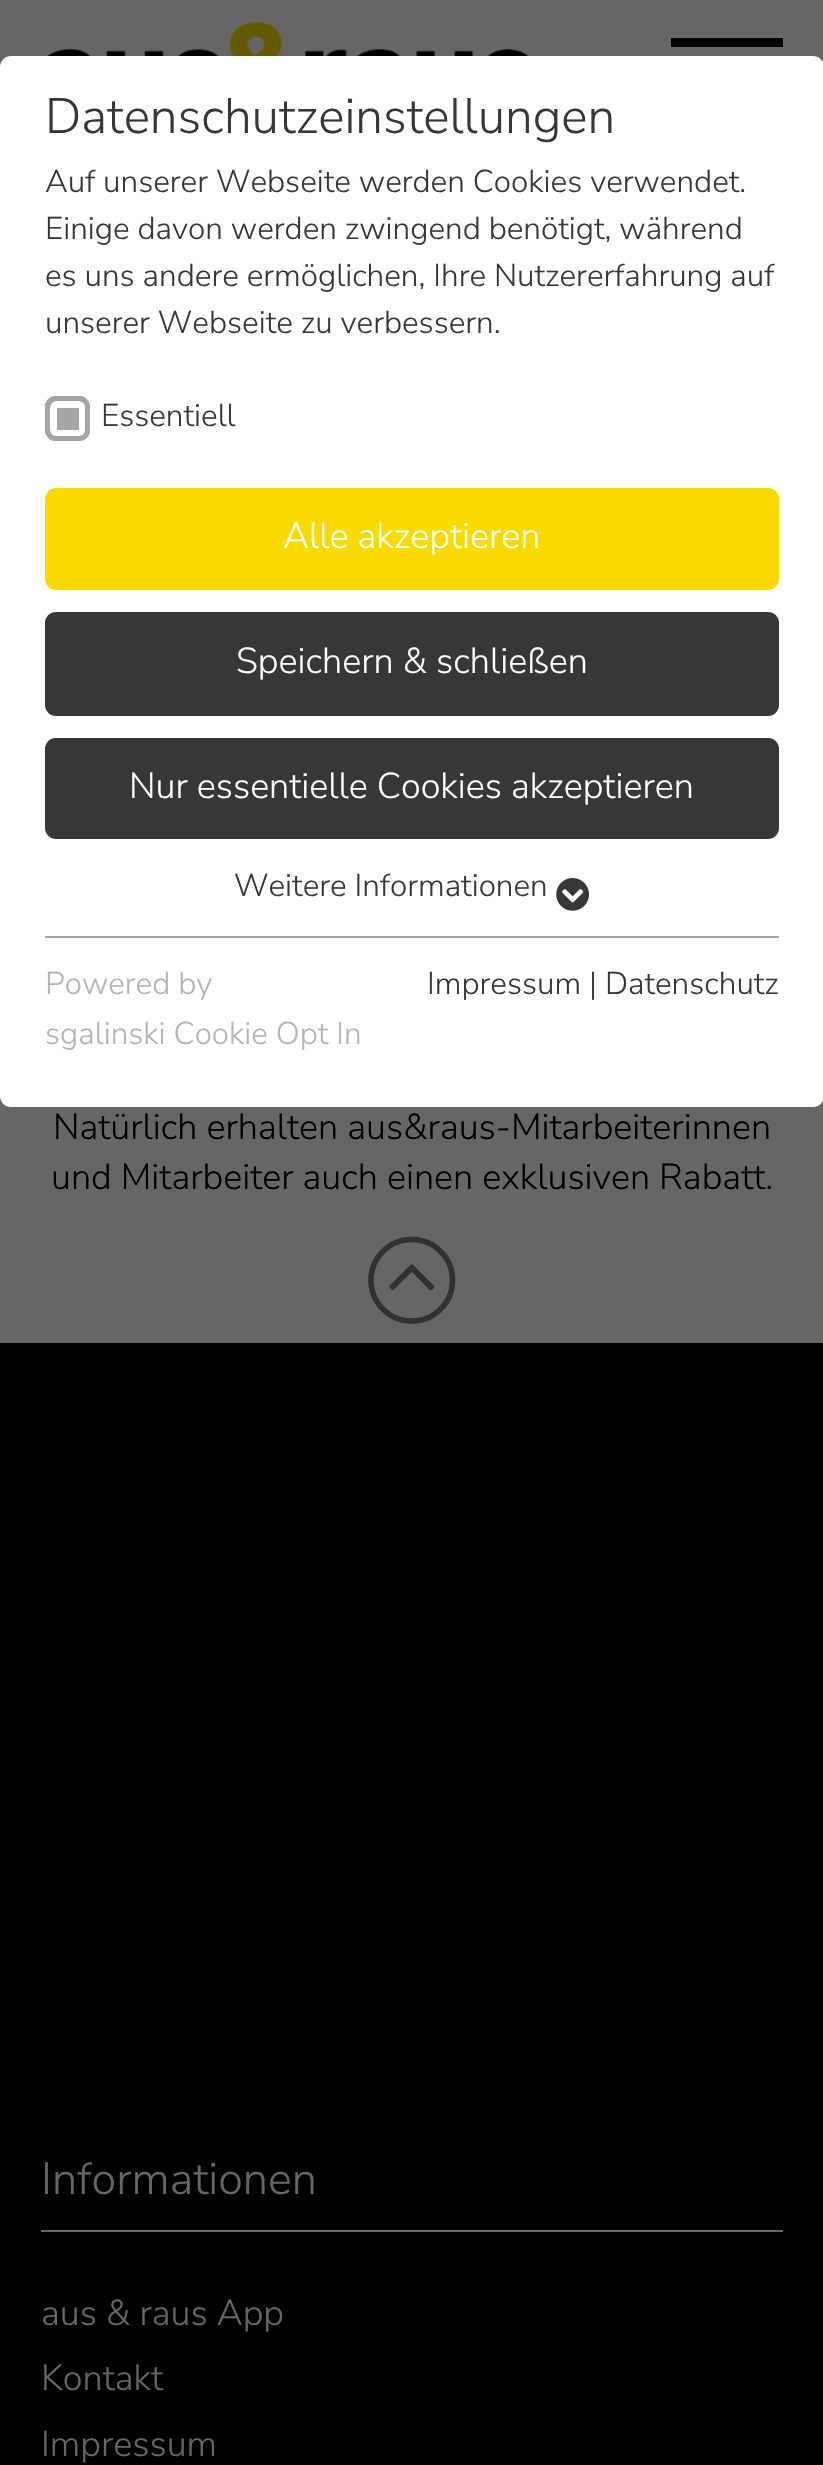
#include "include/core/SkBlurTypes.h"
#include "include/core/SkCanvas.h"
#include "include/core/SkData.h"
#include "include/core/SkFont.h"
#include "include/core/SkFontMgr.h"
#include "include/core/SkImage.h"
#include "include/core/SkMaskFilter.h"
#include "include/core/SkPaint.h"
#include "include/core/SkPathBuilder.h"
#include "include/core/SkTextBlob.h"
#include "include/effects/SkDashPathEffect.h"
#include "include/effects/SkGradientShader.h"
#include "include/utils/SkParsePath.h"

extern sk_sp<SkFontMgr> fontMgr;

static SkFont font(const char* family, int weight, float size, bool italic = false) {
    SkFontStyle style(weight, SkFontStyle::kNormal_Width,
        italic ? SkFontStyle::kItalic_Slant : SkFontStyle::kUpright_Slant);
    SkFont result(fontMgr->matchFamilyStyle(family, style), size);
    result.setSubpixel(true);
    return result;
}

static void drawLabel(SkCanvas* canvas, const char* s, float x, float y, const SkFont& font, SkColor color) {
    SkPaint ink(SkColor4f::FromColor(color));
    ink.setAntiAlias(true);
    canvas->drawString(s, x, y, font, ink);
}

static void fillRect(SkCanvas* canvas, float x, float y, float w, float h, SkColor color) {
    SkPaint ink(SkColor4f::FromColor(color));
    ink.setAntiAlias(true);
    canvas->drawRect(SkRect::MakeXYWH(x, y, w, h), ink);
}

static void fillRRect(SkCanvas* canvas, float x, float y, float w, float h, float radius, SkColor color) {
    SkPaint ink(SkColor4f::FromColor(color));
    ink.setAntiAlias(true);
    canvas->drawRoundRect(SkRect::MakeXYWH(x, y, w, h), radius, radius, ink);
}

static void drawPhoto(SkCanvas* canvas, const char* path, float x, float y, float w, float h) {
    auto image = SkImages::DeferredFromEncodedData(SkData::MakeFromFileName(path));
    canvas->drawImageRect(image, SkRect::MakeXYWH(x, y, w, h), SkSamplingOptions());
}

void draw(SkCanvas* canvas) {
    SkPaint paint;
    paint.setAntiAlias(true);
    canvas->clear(0xFF666666);
    fillRRect(canvas, 0, 56, 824, 1051, 11, 0xFFFFFFFF);
    SkFont font1 = font("Nunito Sans", 300, 49.5f);
    drawLabel(canvas, "Datenschutzeinstellungen", 45, 133, font1, 0xFF373737);
    SkFont font2 = font("Nunito Sans", 300, 31.5f);
    drawLabel(canvas, "Auf unserer Webseite werden Cookies verwendet.", 45, 192, font2, 0xFF373737);
    drawLabel(canvas, "Einige davon werden zwingend benötigt, während", 45, 239, font2, 0xFF373737);
    drawLabel(canvas, "es uns andere ermöglichen, Ihre Nutzererfahrung auf", 45, 286, font2, 0xFF373737);
    drawLabel(canvas, "unserer Webseite zu verbessern.", 45, 333, font2, 0xFF373737);
    fillRRect(canvas, 45, 396, 45, 45, 11, 0xFFA5A5A5);
    paint.setStroke(true);
    paint.setStrokeWidth(7);
    paint.setColor(0xFFFFFFFF);
    canvas->drawRoundRect(SkRect::MakeXYWH(53.5f, 404.5f, 29, 29), 3.5f, 3.5f, paint);
    paint.setStrokeWidth(5);
    paint.setColor(0xFFA5A5A5);
    canvas->drawRoundRect(SkRect::MakeXYWH(47.5f, 398.5f, 40, 40), 8.5f, 8.5f, paint);
    drawLabel(canvas, "Essentiell", 101, 426, font2, 0xFF373737);
    fillRRect(canvas, 45, 488, 734, 102, 11, 0xFFFADB00);
    SkFont font3 = font("Nunito Sans", 300, 36);
    drawLabel(canvas, "Alle akzeptieren", 283, 548, font3, 0xFFFFFFFF);
    fillRRect(canvas, 45, 612, 734, 104, 11, 0xFF373737);
    drawLabel(canvas, "Speichern & schließen", 236, 673, font3, 0xFFFFFFFF);
    fillRRect(canvas, 45, 738, 734, 101, 11, 0xFF373737);
    drawLabel(canvas, "Nur essentielle Cookies akzeptieren", 129, 798, font3, 0xFFFFFFFF);
    drawLabel(canvas, "Weitere Informationen", 234, 896, font2, 0xFF373737);
    drawPhoto(canvas, "assets/img1.png", 556, 878, 33, 33);
    fillRect(canvas, 45, 936, 734, 2, 0xFFA5A5A5);
    drawLabel(canvas, "Powered by", 45, 994, font2, 0xFFB4B4B4);
    drawLabel(canvas, "sgalinski Cookie Opt In", 45, 1044, font2, 0xFFB4B4B4);
    drawLabel(canvas, "Impressum | Datenschutz", 427, 994, font2, 0xFF373737);
    drawPhoto(canvas, "assets/img2.png", 46, 22, 483, 34);
    fillRect(canvas, 671, 38, 112, 9, 0xFF000000);
    drawLabel(canvas, "Natürlich erhalten aus&raus-Mitarbeiterinnen", 53, 1139, font3, 0xFF000000);
    drawLabel(canvas, "und Mitarbeiter auch einen exklusiven Rabatt.", 51, 1189, font3, 0xFF000000);
    drawPhoto(canvas, "assets/img3.png", 368, 1236, 88, 88);
    fillRect(canvas, 0, 1343, 823, 1122, 0xFF000000);
    fillRect(canvas, 41, 2230, 742, 2, 0xFF666666);
    SkFont font4 = font("Nunito Sans", 300, 45);
    drawLabel(canvas, "Informationen", 41, 2194, font4, 0xFF666666);
    drawLabel(canvas, "aus & raus App", 41, 2325, font3, 0xFF666666);
    drawLabel(canvas, "Kontakt", 41, 2390, font3, 0xFF666666);
    drawLabel(canvas, "Impressum", 41, 2456, font3, 0xFF666666);
}
